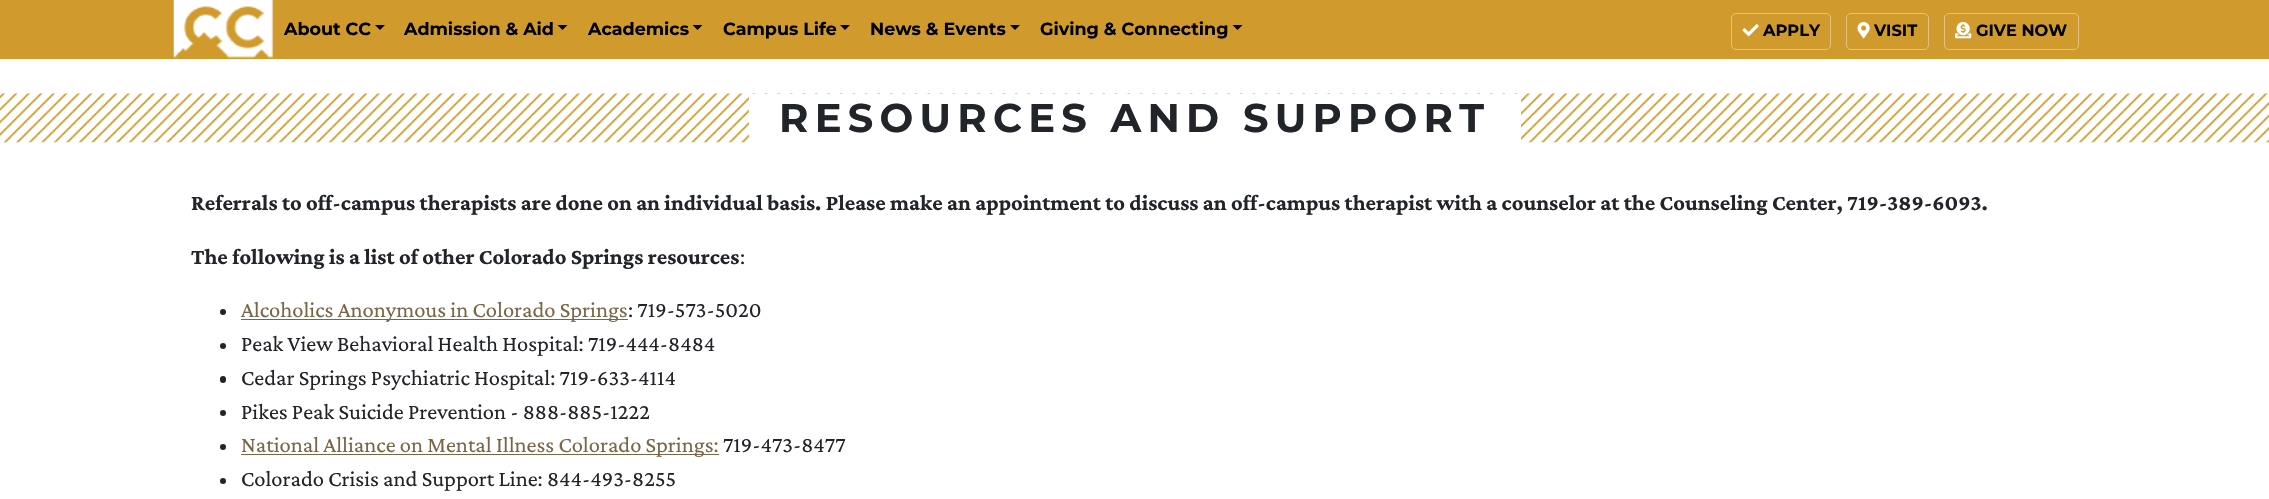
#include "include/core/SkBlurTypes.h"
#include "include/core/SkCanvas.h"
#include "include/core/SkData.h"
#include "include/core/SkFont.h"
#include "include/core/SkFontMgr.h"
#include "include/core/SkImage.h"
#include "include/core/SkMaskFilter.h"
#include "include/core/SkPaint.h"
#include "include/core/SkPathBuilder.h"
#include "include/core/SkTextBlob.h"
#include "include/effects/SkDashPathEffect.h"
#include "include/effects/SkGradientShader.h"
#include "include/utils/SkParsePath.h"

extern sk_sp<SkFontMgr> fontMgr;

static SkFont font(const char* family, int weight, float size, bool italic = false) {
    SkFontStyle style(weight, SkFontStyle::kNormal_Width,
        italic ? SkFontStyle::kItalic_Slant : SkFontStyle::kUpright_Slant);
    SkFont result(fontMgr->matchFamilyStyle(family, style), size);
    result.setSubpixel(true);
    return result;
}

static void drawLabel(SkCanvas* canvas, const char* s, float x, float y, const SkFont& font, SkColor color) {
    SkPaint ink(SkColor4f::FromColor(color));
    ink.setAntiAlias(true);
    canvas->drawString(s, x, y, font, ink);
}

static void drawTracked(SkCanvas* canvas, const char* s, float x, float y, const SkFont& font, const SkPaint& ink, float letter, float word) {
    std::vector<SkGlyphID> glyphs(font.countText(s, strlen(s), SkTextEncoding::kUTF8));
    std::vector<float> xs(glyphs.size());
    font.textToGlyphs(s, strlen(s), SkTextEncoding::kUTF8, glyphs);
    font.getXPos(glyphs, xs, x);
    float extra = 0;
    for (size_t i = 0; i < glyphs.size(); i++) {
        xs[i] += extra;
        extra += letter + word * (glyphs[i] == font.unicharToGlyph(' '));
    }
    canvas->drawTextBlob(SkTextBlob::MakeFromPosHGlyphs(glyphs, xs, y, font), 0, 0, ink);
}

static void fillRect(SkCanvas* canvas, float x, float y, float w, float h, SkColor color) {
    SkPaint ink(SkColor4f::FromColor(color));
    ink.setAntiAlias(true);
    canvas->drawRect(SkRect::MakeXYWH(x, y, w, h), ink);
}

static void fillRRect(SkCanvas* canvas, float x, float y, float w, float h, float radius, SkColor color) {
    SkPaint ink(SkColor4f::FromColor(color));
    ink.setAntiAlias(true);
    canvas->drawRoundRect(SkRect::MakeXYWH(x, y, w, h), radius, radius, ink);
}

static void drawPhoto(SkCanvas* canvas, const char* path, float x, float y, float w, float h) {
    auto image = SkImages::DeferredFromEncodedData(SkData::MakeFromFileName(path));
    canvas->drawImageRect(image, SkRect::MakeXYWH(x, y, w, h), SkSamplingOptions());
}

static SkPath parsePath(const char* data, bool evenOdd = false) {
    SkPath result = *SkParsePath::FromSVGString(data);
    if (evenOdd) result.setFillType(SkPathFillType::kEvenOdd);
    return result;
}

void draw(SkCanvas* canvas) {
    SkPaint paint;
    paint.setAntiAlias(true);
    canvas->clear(0xFFFFFFFF);
    fillRect(canvas, 0, 0, 2269, 59, 0xFFD09B2C);
    drawPhoto(canvas, "assets/img1.png", 173, 0, 100, 58);
    SkFont font1 = font("Montserrat", 700, 17.5f);
    drawLabel(canvas, "About CC", 284, 35, font1, 0xFF000000);
    paint.setColor(0xFF000000);
    canvas->drawPath(parsePath("M375 25H385L380 30Z"), paint);
    drawLabel(canvas, "Admission & Aid", 404, 35, font1, 0xFF000000);
    canvas->drawPath(parsePath("M557.5 25H567.5L562.5 30Z"), paint);
    drawLabel(canvas, "Academics", 588, 35, font1, 0xFF000000);
    canvas->drawPath(parsePath("M692.5 25H702.5L697.5 30Z"), paint);
    drawLabel(canvas, "Campus Life", 723, 35, font1, 0xFF000000);
    canvas->drawPath(parsePath("M840 25H850L845 30Z"), paint);
    drawLabel(canvas, "News & Events", 870, 35, font1, 0xFF000000);
    canvas->drawPath(parsePath("M1010 25H1020L1015 30Z"), paint);
    drawLabel(canvas, "Giving & Connecting", 1040, 35, font1, 0xFF000000);
    canvas->drawPath(parsePath("M1232.5 25H1242.5L1237.5 30Z"), paint);
    paint.setStroke(true);
    paint.setStrokeWidth(1);
    paint.setColor(0xFFE3C380);
    canvas->drawRoundRect(SkRect::MakeXYWH(1731.5f, 13.5f, 99, 36), 4.5f, 4.5f, paint);
    drawPhoto(canvas, "assets/img2.png", 1742, 24, 17, 13);
    SkFont font2 = font("Montserrat", 700, 16.25f);
    drawLabel(canvas, "APPLY", 1763, 36, font2, 0xFF000000);
    canvas->drawRoundRect(SkRect::MakeXYWH(1846.5f, 13.5f, 82, 36), 4.5f, 4.5f, paint);
    drawPhoto(canvas, "assets/img3.png", 1857, 22, 13, 17);
    drawLabel(canvas, "VISIT", 1874, 36, font2, 0xFF000000);
    canvas->drawRoundRect(SkRect::MakeXYWH(1944.5f, 13.5f, 134, 36), 4.5f, 4.5f, paint);
    drawPhoto(canvas, "assets/img4.png", 1955, 22, 17, 17);
    drawLabel(canvas, "GIVE NOW", 1976, 36, font2, 0xFF000000);
    drawPhoto(canvas, "assets/img5.png", 0, 93, 2269, 50);
    fillRect(canvas, 749, 94, 772, 49, 0xFFFFFFFF);
    SkFont font3 = font("Montserrat", 700, 40);
    paint.setStroke(false);
    paint.setColor(0xFF212529);
    drawTracked(canvas, "RESOURCES AND SUPPORT", 779, 132, font3, paint, 6.25f, 0);
    SkFont font4 = font("Crimson Pro", 700, 22.5f);
    drawLabel(canvas, "Referrals to off-campus therapists are done on an individual basis. Please make an appointment to discuss an off-campus therapist with a counselor at the Counseling Center, 719-389-6093.", 191, 210, font4, 0xFF212529);
    drawLabel(canvas, "The following is a list of other Colorado Springs resources", 191, 264, font4, 0xFF212529);
    SkFont font5 = font("Crimson Pro", 400, 22.5f);
    drawLabel(canvas, ":", 740, 264, font5, 0xFF212529);
    canvas->drawCircle(223, 312, 3, paint);
    fillRect(canvas, 241, 319, 387, 1, 0xFF7A6646);
    drawLabel(canvas, "Alcoholics Anonymous in Colorado Springs", 241, 317, font5, 0xFF7A6646);
    drawLabel(canvas, ": 719-573-5020", 628, 317, font5, 0xFF212529);
    canvas->drawCircle(223, 346, 3, paint);
    drawLabel(canvas, "Peak View Behavioral Health Hospital: 719-444-8484", 241, 351, font5, 0xFF212529);
    fillRRect(canvas, 220, 376, 6, 7, 3, 0xFF212529);
    drawLabel(canvas, "Cedar Springs Psychiatric Hospital: 719-633-4114", 241, 385, font5, 0xFF212529);
    canvas->drawCircle(223, 413, 3, paint);
    drawLabel(canvas, "Pikes Peak Suicide Prevention - 888-885-1222", 241, 419, font5, 0xFF212529);
    canvas->drawCircle(223, 447, 3, paint);
    fillRect(canvas, 241, 454, 478, 1, 0xFF7A6646);
    drawLabel(canvas, "National Alliance on Mental Illness Colorado Springs:", 241, 452, font5, 0xFF7A6646);
    drawLabel(canvas, "719-473-8477", 723, 452, font5, 0xFF212529);
    canvas->drawCircle(223, 481, 3, paint);
    drawLabel(canvas, "Colorado Crisis and Support Line: 844-493-8255", 241, 486, font5, 0xFF212529);
}
